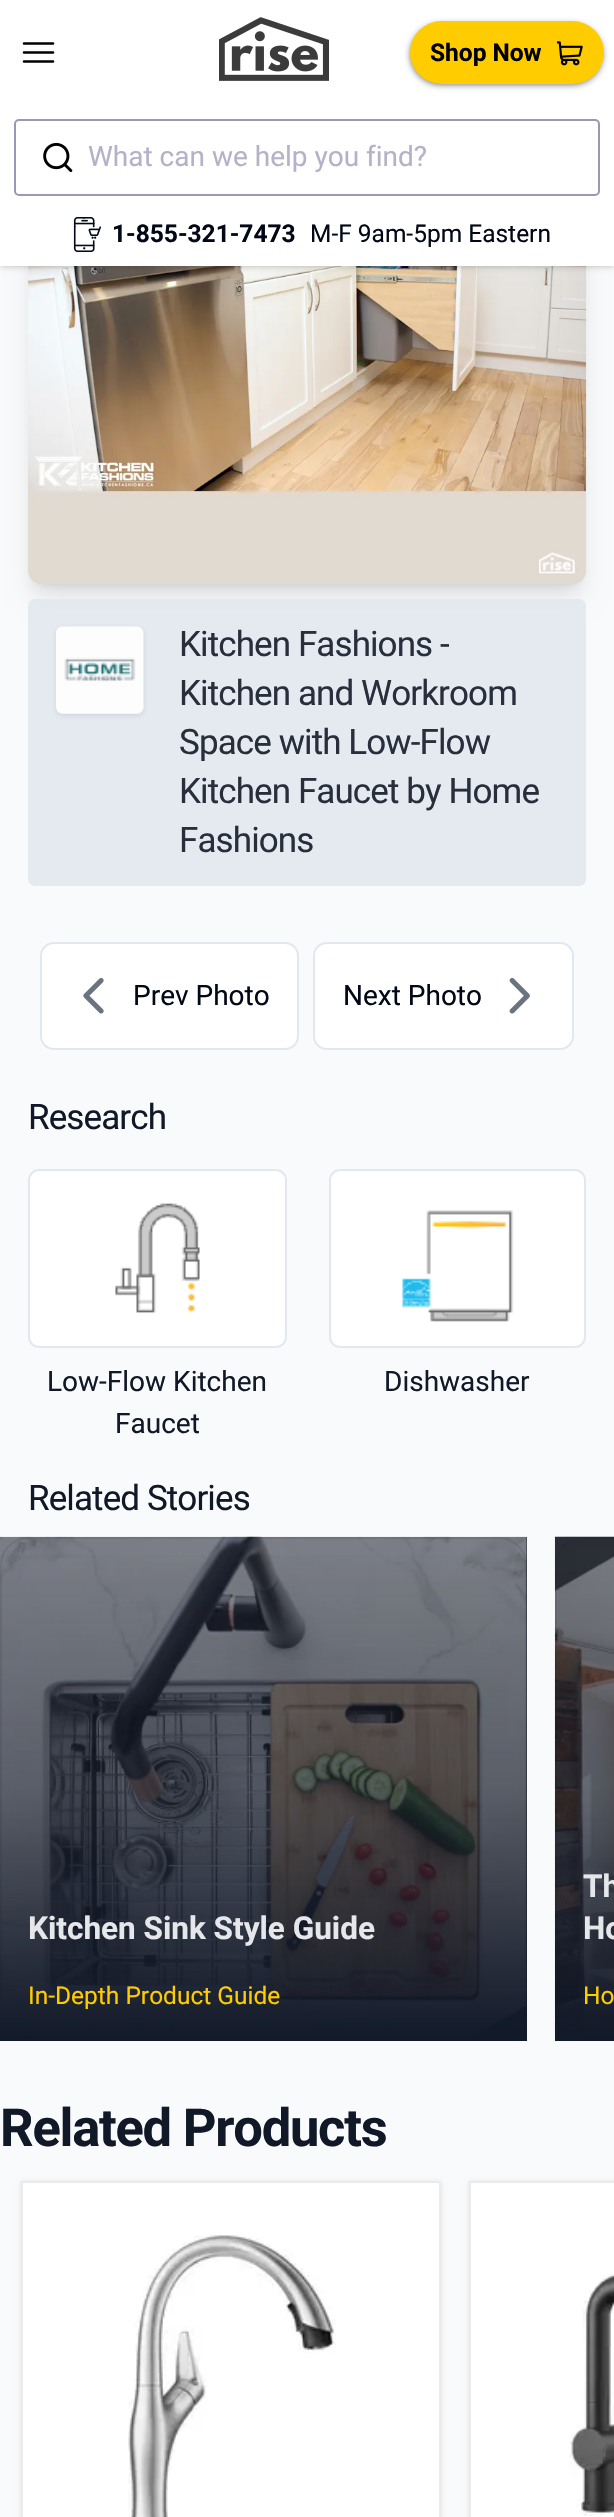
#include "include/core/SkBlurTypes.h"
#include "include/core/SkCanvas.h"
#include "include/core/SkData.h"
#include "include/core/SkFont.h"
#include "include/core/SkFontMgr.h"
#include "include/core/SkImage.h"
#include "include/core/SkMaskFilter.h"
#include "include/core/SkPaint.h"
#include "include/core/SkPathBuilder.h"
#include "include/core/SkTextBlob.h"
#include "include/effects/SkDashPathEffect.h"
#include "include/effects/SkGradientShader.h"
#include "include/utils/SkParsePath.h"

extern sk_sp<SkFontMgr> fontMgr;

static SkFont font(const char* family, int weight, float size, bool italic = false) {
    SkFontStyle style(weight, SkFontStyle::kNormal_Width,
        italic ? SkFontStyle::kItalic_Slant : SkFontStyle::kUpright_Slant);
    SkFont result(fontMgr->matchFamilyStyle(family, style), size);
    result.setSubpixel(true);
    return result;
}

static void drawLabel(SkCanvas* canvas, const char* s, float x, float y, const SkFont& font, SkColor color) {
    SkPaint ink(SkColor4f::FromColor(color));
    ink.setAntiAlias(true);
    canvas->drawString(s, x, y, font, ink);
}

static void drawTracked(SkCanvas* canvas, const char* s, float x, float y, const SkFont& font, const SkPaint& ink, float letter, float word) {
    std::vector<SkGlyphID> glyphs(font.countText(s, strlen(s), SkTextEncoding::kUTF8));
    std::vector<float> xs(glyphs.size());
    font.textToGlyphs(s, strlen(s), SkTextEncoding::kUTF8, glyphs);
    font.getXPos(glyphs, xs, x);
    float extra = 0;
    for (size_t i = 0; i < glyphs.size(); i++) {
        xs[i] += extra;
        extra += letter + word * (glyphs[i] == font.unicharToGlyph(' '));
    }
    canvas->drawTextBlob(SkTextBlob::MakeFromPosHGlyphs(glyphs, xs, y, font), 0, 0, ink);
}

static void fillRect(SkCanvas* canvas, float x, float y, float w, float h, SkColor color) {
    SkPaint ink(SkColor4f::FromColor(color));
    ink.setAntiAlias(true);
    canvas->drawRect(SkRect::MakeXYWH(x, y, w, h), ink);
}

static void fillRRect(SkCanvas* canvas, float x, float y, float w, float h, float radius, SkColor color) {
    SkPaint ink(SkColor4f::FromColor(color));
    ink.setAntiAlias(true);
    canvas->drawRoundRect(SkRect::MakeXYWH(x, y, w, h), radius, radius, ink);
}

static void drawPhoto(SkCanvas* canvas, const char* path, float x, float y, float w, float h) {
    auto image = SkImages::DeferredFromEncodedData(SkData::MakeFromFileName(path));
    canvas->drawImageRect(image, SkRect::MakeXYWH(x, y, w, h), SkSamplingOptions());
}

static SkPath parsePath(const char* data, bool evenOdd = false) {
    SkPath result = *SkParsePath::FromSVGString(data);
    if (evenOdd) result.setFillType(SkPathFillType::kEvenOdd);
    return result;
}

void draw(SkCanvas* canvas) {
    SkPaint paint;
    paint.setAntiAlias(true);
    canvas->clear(0xFFF9FAFB);
    paint.setColor(0x1A000000);
    paint.setMaskFilter(SkMaskFilter::MakeBlur(kNormal_SkBlurStyle, 5));
    canvas->drawRoundRect(SkRect::MakeXYWH(35, 40, 544, 545), 7, 7, paint);
    paint.setMaskFilter(nullptr);
    paint.setMaskFilter(SkMaskFilter::MakeBlur(kNormal_SkBlurStyle, 13));
    canvas->drawRoundRect(SkRect::MakeXYWH(33, 49, 548, 548), 9, 9, paint);
    paint.setMaskFilter(nullptr);
    drawPhoto(canvas, "assets/img5.png", 28, 266, 559, 318);
    paint.setMaskFilter(SkMaskFilter::MakeBlur(kNormal_SkBlurStyle, 2));
    canvas->drawRect(SkRect::MakeXYWH(2, 4, 611, 262), paint);
    paint.setMaskFilter(nullptr);
    paint.setMaskFilter(SkMaskFilter::MakeBlur(kNormal_SkBlurStyle, 2.5f));
    canvas->drawRect(SkRect::MakeXYWH(0, 2, 614, 266), paint);
    paint.setMaskFilter(nullptr);
    fillRect(canvas, 0, 0, 614, 266, 0xFFFFFFFF);
    paint.setStroke(true);
    paint.setStrokeWidth(2.6f);
    paint.setStrokeCap(SkPaint::kRound_Cap);
    paint.setStrokeJoin(SkPaint::kRound_Join);
    paint.setColor(0xFF000000);
    canvas->drawPath(parsePath("M24 43.5H53M24 52.5H53M24 61.5H53"), paint);
    drawPhoto(canvas, "assets/img1.png", 219, 17, 110, 64);
    paint.setStroke(false);
    paint.setColor(0xA3000000);
    paint.setMaskFilter(SkMaskFilter::MakeBlur(kNormal_SkBlurStyle, 3.5f));
    canvas->drawRoundRect(SkRect::MakeXYWH(411, 25, 191, 59), 29.5f, 29.5f, paint);
    paint.setMaskFilter(nullptr);
    fillRRect(canvas, 410, 21, 194, 63, 31.5f, 0xFFFFCC00);
    SkFont font1 = font("Roboto", 700, 24.5f);
    drawLabel(canvas, "Shop Now", 430, 61, font1, 0xFF000000);
    drawPhoto(canvas, "assets/img2.png", 557, 41, 26, 25);
    paint.setStroke(true);
    paint.setStrokeWidth(2);
    paint.setStrokeCap(SkPaint::kButt_Cap);
    paint.setStrokeJoin(SkPaint::kMiter_Join);
    paint.setColor(0xFF9998B5);
    canvas->drawRoundRect(SkRect::MakeXYWH(15, 120, 584, 75), 4, 4, paint);
    drawPhoto(canvas, "assets/img3.png", 43, 142, 30, 31);
    SkFont font2 = font("Roboto", 400, 28);
    drawLabel(canvas, "What can we help you find?", 88, 166, font2, 0xFFB3B2C8);
    drawPhoto(canvas, "assets/img4.png", 73, 217, 28, 35);
    drawLabel(canvas, "1-855-321-7473", 112, 242, font1, 0xFF020817);
    SkFont font3 = font("Roboto", 400, 24.5f);
    drawLabel(canvas, "M-F 9am-5pm Eastern", 310, 242, font3, 0xFF020817);
    fillRRect(canvas, 28, 599, 558, 287, 7, 0xE6E2E8F0);
    canvas->save();
    canvas->clipPath(parsePath("M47 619H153V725H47ZM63 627H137C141 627 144 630 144 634V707C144 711 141 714 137 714H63C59 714 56 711 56 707V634C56 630 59 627 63 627Z", true), true);
    paint.setStroke(false);
    paint.setColor(0x1A191919);
    paint.setMaskFilter(SkMaskFilter::MakeBlur(kNormal_SkBlurStyle, 2.5f));
    canvas->drawRoundRect(SkRect::MakeXYWH(56, 628, 88, 88), 7, 7, paint);
    paint.setMaskFilter(nullptr);
    canvas->restore();
    drawPhoto(canvas, "assets/img6.png", 56, 626, 88, 88);
    SkFont font4 = font("Roboto", 400, 35);
    paint.setColor(0xFF282F3C);
    drawTracked(canvas, "Kitchen Fashions -", 179, 656, font4, paint, -0.9f, 0);
    drawTracked(canvas, "Kitchen and Workroom", 179, 705, font4, paint, -0.9f, 0);
    drawTracked(canvas, "Space with Low-Flow", 179, 754, font4, paint, -0.9f, 0);
    drawTracked(canvas, "Kitchen Faucet by Home", 179, 803, font4, paint, -0.9f, 0);
    drawTracked(canvas, "Fashions", 179, 852, font4, paint, -0.9f, 0);
    paint.setColor(0xFFFFFFFF);
    canvas->drawRoundRect(SkRect::MakeXYWH(41, 943, 257, 106), 13, 13, paint);
    paint.setStroke(true);
    paint.setColor(0xFFE2E8F0);
    canvas->drawRoundRect(SkRect::MakeXYWH(41, 943, 257, 106), 13, 13, paint);
    drawPhoto(canvas, "assets/img7.png", 83, 978, 21, 36);
    drawLabel(canvas, "Prev Photo", 133, 1005, font2, 0xFF020817);
    paint.setStroke(false);
    paint.setColor(0xFFFFFFFF);
    canvas->drawRoundRect(SkRect::MakeXYWH(314, 943, 259, 106), 13, 13, paint);
    paint.setStroke(true);
    paint.setColor(0xFFE2E8F0);
    canvas->drawRoundRect(SkRect::MakeXYWH(314, 943, 259, 106), 13, 13, paint);
    drawLabel(canvas, "Next Photo", 343, 1005, font2, 0xFF020817);
    drawPhoto(canvas, "assets/img8.png", 509, 978, 21, 36);
    paint.setStroke(false);
    paint.setColor(0xFF111827);
    drawTracked(canvas, "Research", 28, 1129, font4, paint, -0.9f, 0);
    paint.setColor(0xFFFFFFFF);
    canvas->drawRoundRect(SkRect::MakeXYWH(29, 1170, 257, 177), 10, 10, paint);
    paint.setStroke(true);
    paint.setColor(0xFFE2E8F0);
    canvas->drawRoundRect(SkRect::MakeXYWH(29, 1170, 257, 177), 10, 10, paint);
    drawPhoto(canvas, "assets/img9.png", 115, 1203, 85, 110);
    drawLabel(canvas, "Low-Flow Kitchen", 47, 1391, font2, 0xFF111827);
    drawLabel(canvas, "Faucet", 115, 1433, font2, 0xFF111827);
    paint.setStroke(false);
    paint.setColor(0xFFFFFFFF);
    canvas->drawRoundRect(SkRect::MakeXYWH(330, 1170, 255, 177), 10, 10, paint);
    paint.setStroke(true);
    paint.setColor(0xFFE2E8F0);
    canvas->drawRoundRect(SkRect::MakeXYWH(330, 1170, 255, 177), 10, 10, paint);
    drawPhoto(canvas, "assets/img10.png", 402, 1210, 112, 112);
    drawLabel(canvas, "Dishwasher", 384, 1391, font2, 0xFF111827);
    paint.setStroke(false);
    paint.setColor(0xFF111827);
    drawTracked(canvas, "Related Stories", 28, 1510, font4, paint, -0.9f, 0);
    fillRect(canvas, 0, 1537, 527, 502, 0xFF111827);
    drawPhoto(canvas, "assets/img11.png", 0, 1536, 527, 503);
    {
        const SkColor colors[] = {0xFF111827, 0x4D111827, 0x00111827};
        const float stops[] = {0, 0.5f, 1};
        const SkPoint ends[] = {{263, 2041}, {263, 1537}};
        paint.setShader(SkGradientShader::MakeLinear(ends, colors, stops, 3, SkTileMode::kClamp));
        paint.setAlpha(255);
    }
    canvas->drawRect(SkRect::MakeXYWH(0, 1555, 527, 486), paint);
    paint.setStroke(true);
    paint.setShader(nullptr);
    paint.setColor(0x1A111827);
    canvas->drawRoundRect(SkRect::MakeXYWH(1, 1538, 525, 502), 27, 27, paint);
    SkFont font5 = font("Roboto", 700, 31.5f);
    drawLabel(canvas, "Kitchen Sink Style Guide", 28, 1939, font5, 0xFFE5E7EB);
    drawLabel(canvas, "In-Depth Product Guide", 28, 2004, font3, 0xFFFFCC00);
    fillRect(canvas, 555, 1537, 59, 502, 0xFF111827);
    drawPhoto(canvas, "assets/img12.png", 554, 1536, 60, 504);
    paint.setStroke(false);
    {
        const SkColor colors[] = {0xFF111827, 0x4D111827, 0x00111827};
        const float stops[] = {0, 0.5f, 1};
        const SkPoint ends[] = {{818, 2041}, {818, 1537}};
        paint.setShader(SkGradientShader::MakeLinear(ends, colors, stops, 3, SkTileMode::kClamp));
        paint.setAlpha(255);
    }
    canvas->drawRect(SkRect::MakeXYWH(555, 1558, 59, 483), paint);
    paint.setStroke(true);
    paint.setShader(nullptr);
    paint.setColor(0x1A111827);
    canvas->drawRoundRect(SkRect::MakeXYWH(556, 1538, 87, 502), 27, 27, paint);
    drawLabel(canvas, "Th", 583, 1897, font5, 0xFFE5E7EB);
    drawLabel(canvas, "Ho", 583, 1939, font5, 0xFFE5E7EB);
    drawLabel(canvas, "Ho", 583, 2004, font3, 0xFFFFCC00);
    SkFont font6 = font("Roboto", 700, 52.5f);
    paint.setStroke(false);
    paint.setColor(0xFF111827);
    drawTracked(canvas, "Related Products", 0, 2146, font6, paint, -1.25f, 0);
    paint.setColor(0x1A000000);
    paint.setMaskFilter(SkMaskFilter::MakeBlur(kNormal_SkBlurStyle, 2.5f));
    canvas->drawRect(SkRect::MakeXYWH(21, 2182, 420, 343), paint);
    paint.setMaskFilter(nullptr);
    paint.setColor(0xFFFFFFFF);
    canvas->drawRect(SkRect::MakeXYWH(22, 2182, 418, 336), paint);
    paint.setStroke(true);
    paint.setColor(0xFFEBEBEB);
    canvas->drawRect(SkRect::MakeXYWH(22, 2182, 418, 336), paint);
    drawPhoto(canvas, "assets/img13.png", 128, 2235, 208, 282);
    paint.setStroke(false);
    paint.setColor(0x1A000000);
    paint.setMaskFilter(SkMaskFilter::MakeBlur(kNormal_SkBlurStyle, 2.5f));
    canvas->drawRect(SkRect::MakeXYWH(469, 2182, 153, 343), paint);
    paint.setMaskFilter(nullptr);
    paint.setColor(0xFFFFFFFF);
    canvas->drawRect(SkRect::MakeXYWH(470, 2182, 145, 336), paint);
    paint.setStroke(true);
    paint.setColor(0xFFEBEBEB);
    canvas->drawRect(SkRect::MakeXYWH(470, 2182, 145, 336), paint);
    drawPhoto(canvas, "assets/img14.png", 569, 2274, 45, 242);
}
